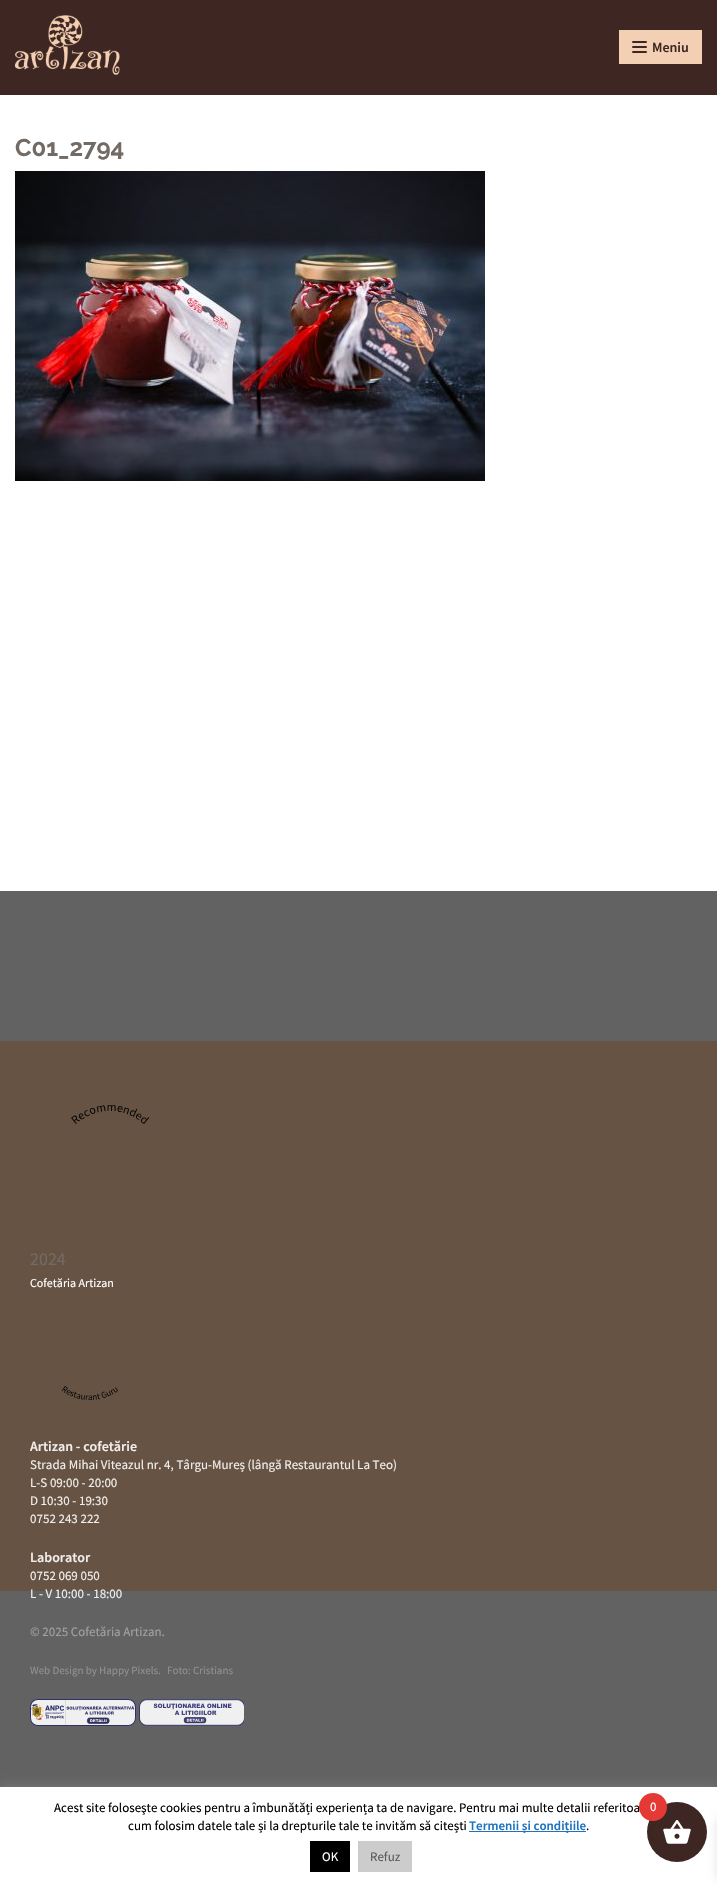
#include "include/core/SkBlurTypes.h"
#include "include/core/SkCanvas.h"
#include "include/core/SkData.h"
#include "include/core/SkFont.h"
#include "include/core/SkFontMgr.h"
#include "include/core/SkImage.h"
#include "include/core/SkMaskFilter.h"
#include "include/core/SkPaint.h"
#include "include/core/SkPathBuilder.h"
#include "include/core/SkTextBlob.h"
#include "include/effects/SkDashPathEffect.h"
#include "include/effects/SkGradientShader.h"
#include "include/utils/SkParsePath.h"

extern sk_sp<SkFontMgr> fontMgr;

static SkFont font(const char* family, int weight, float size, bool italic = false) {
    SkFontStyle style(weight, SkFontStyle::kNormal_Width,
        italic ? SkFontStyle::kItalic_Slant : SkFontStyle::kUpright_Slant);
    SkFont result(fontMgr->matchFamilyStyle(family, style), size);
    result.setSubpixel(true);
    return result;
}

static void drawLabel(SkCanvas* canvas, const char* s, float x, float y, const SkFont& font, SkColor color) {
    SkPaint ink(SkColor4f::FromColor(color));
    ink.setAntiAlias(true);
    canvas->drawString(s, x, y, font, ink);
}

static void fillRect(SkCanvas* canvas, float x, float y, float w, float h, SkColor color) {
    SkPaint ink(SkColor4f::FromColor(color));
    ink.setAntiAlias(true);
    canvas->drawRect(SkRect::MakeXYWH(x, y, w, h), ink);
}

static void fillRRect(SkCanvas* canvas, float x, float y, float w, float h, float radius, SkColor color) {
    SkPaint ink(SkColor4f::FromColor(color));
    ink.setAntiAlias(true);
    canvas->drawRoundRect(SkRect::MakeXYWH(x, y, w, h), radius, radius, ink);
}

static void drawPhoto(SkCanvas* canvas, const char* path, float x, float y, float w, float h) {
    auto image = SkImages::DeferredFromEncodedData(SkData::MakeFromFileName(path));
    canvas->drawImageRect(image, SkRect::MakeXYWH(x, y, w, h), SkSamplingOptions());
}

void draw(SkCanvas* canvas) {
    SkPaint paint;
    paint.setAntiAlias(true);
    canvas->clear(0xFF626262);
    fillRect(canvas, 0, 95, 717, 796, 0xFFFFFFFF);
    fillRect(canvas, 0, 0, 717, 95, 0xFF3E2723);
    drawPhoto(canvas, "assets/img1.png", 15, 15, 105, 60);
    fillRect(canvas, 619, 30, 83, 34, 0xFFF3CFB3);
    fillRRect(canvas, 632, 46, 15, 2, 1, 0xFF3E2723);
    fillRRect(canvas, 632, 41, 15, 2, 1, 0xFF3E2723);
    fillRRect(canvas, 632, 51, 15, 2, 1, 0xFF3E2723);
    SkFont font1 = font("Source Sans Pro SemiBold", 600, 14);
    drawLabel(canvas, "Meniu", 652, 52, font1, 0xFF3E2723);
    SkFont font2 = font("Raleway", 700, 24);
    drawLabel(canvas, "C01_2794", 15, 156, font2, 0xFF716A65);
    drawPhoto(canvas, "assets/img2.png", 15, 171, 470, 310);
    fillRect(canvas, 0, 1041, 717, 550, 0xFF675343);
    drawPhoto(canvas, "assets/img3.png", 71, 1105, 79, 20);
    SkFont font3 = font("Source Sans Pro", 400, 18);
    drawLabel(canvas, "2024", 30, 1265, font3, 0xFF716A65);
    SkFont font4 = font("Source Sans Pro", 400, 12);
    drawLabel(canvas, "Cofetăria Artizan", 30, 1287, font4, 0xFFFFFFFF);
    drawPhoto(canvas, "assets/img4.png", 61, 1386, 57, 14);
    drawLabel(canvas, "Artizan - cofetărie", 30, 1451, font1, 0xFFF0EEEC);
    SkFont font5 = font("Source Sans Pro", 400, 13);
    drawLabel(canvas, "Strada Mihai Viteazul nr. 4, Târgu-Mureș (lângă Restaurantul La Teo)", 30, 1469, font5, 0xFFF0EEEC);
    drawLabel(canvas, "L-S 09:00 - 20:00", 30, 1487, font5, 0xFFF0EEEC);
    drawLabel(canvas, "D 10:30 - 19:30", 30, 1505, font5, 0xFFF0EEEC);
    drawLabel(canvas, "0752 243 222", 30, 1523, font5, 0xFFF0EEEC);
    drawLabel(canvas, "Laborator", 30, 1562, font1, 0xFFF0EEEC);
    drawLabel(canvas, "0752 069 050", 30, 1580, font5, 0xFFF0EEEC);
    drawLabel(canvas, "L - V 10:00 - 18:00", 30, 1598, font5, 0xFFF0EEEC);
    drawLabel(canvas, "© 2025 Cofetăria Artizan.", 30, 1636, font5, 0xFFA1A1A1);
    SkFont font6 = font("Source Sans Pro", 400, 11);
    drawLabel(canvas, "Web Design by Happy Pixels.", 30, 1674, font6, 0xFF919191);
    drawLabel(canvas, "Foto: Cristians", 167, 1674, font6, 0xFF919191);
    drawPhoto(canvas, "assets/img5.png", 30, 1699, 106, 27);
    drawPhoto(canvas, "assets/img6.png", 139, 1699, 105, 27);
    paint.setColor(0x4DACABAB);
    paint.setMaskFilter(SkMaskFilter::MakeBlur(kNormal_SkBlurStyle, 5));
    canvas->drawRect(SkRect::MakeXYWH(0, 1786, 717, 97), paint);
    paint.setMaskFilter(nullptr);
    fillRect(canvas, 0, 1787, 717, 97, 0xFFFFFFFF);
    drawLabel(canvas, "Acest site foloseşte cookies pentru a îmbunătăți experiența ta de navigare. Pentru mai multe detalii referitoa", 54, 1812, font5, 0xFF000000);
    drawLabel(canvas, "cum folosim datele tale și la drepturile tale te invităm să citești", 128, 1830, font5, 0xFF000000);
    fillRect(canvas, 469, 1831, 117, 1, 0xFF1E73BE);
    SkFont font7 = font("Source Sans Pro SemiBold", 600, 13);
    drawLabel(canvas, "Termenii și condițiile", 469, 1830, font7, 0xFF1E73BE);
    drawLabel(canvas, ".", 586, 1830, font5, 0xFF000000);
    fillRect(canvas, 310, 1841, 40, 31, 0xFF000000);
    drawLabel(canvas, "OK", 322, 1861, font5, 0xFFFFFFFF);
    fillRect(canvas, 358, 1841, 54, 31, 0xFFCCCCCC);
    drawLabel(canvas, "Refuz", 370, 1861, font5, 0xFF5B5B5B);
    paint.setColor(0x1A000000);
    paint.setMaskFilter(SkMaskFilter::MakeBlur(kNormal_SkBlurStyle, 5));
    canvas->drawRect(SkRect::MakeXYWH(717, 1819, 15, 60), paint);
    paint.setMaskFilter(nullptr);
    paint.setColor(0xFF3E2723);
    canvas->drawCircle(677, 1832, 30, paint);
    drawPhoto(canvas, "assets/img7.png", 663, 1820, 28, 24);
    paint.setColor(0xFFE53935);
    canvas->drawCircle(653, 1807, 14, paint);
    drawLabel(canvas, "0", 650, 1811, font5, 0xFFFFFFFF);
}
